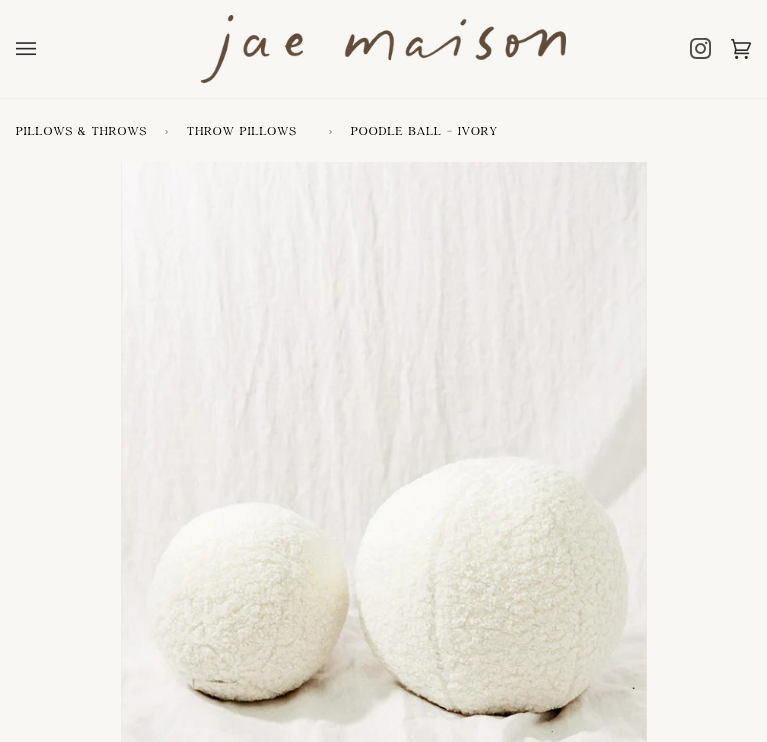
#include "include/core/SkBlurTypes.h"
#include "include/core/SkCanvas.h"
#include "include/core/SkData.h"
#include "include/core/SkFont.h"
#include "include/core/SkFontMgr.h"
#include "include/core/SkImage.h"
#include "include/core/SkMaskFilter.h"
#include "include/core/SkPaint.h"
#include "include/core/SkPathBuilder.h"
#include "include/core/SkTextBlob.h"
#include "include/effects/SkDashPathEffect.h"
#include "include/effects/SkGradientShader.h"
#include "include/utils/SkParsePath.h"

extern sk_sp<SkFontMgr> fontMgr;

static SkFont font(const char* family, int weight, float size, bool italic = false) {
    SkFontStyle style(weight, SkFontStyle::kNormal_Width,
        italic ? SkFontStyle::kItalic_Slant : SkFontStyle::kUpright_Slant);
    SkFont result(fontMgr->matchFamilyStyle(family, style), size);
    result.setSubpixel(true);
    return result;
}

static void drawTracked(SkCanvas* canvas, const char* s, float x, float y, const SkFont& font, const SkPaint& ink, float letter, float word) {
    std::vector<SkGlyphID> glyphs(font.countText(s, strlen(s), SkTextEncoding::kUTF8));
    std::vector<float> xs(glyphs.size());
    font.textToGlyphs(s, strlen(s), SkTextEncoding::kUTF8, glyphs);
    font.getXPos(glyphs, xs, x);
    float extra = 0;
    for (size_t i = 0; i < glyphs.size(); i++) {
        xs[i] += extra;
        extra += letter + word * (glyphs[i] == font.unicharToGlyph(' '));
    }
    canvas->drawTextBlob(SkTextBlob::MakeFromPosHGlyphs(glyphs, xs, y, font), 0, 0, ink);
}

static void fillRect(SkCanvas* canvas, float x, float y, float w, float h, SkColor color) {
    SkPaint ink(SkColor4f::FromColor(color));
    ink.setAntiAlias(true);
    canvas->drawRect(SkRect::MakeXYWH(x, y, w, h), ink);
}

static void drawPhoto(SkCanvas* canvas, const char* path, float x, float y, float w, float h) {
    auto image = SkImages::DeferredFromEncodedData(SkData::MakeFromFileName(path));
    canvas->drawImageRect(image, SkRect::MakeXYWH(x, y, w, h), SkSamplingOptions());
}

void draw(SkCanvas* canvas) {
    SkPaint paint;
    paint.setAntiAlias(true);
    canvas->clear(0xFFF8F7F4);
    fillRect(canvas, 0, 98, 767, 1, 0xFFF4EFE9);
    drawPhoto(canvas, "assets/img1.png", 16, 42, 20, 14);
    drawPhoto(canvas, "assets/img2.png", 201, 15, 365, 68);
    drawPhoto(canvas, "assets/img3.png", 690, 38, 21, 21);
    drawPhoto(canvas, "assets/img4.png", 731, 39, 20, 20);
    SkFont font1 = font("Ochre", 400, 11.4f);
    paint.setColor(0xFF000000);
    drawTracked(canvas, "PILLOWS & THROWS", 16, 135, font1, paint, 1, 0);
    drawTracked(canvas, "›", 165, 135, font1, paint, 1, 0);
    drawTracked(canvas, "THROW PILLOWS", 187, 135, font1, paint, 1, 0);
    drawTracked(canvas, "›", 329, 135, font1, paint, 1, 0);
    drawTracked(canvas, "POODLE BALL - IVORY", 351, 135, font1, paint, 1, 0);
    fillRect(canvas, 121, 162, 526, 580, 0xFFEBE7E2);
    drawPhoto(canvas, "assets/img5.png", 121, 162, 526, 580);
}
